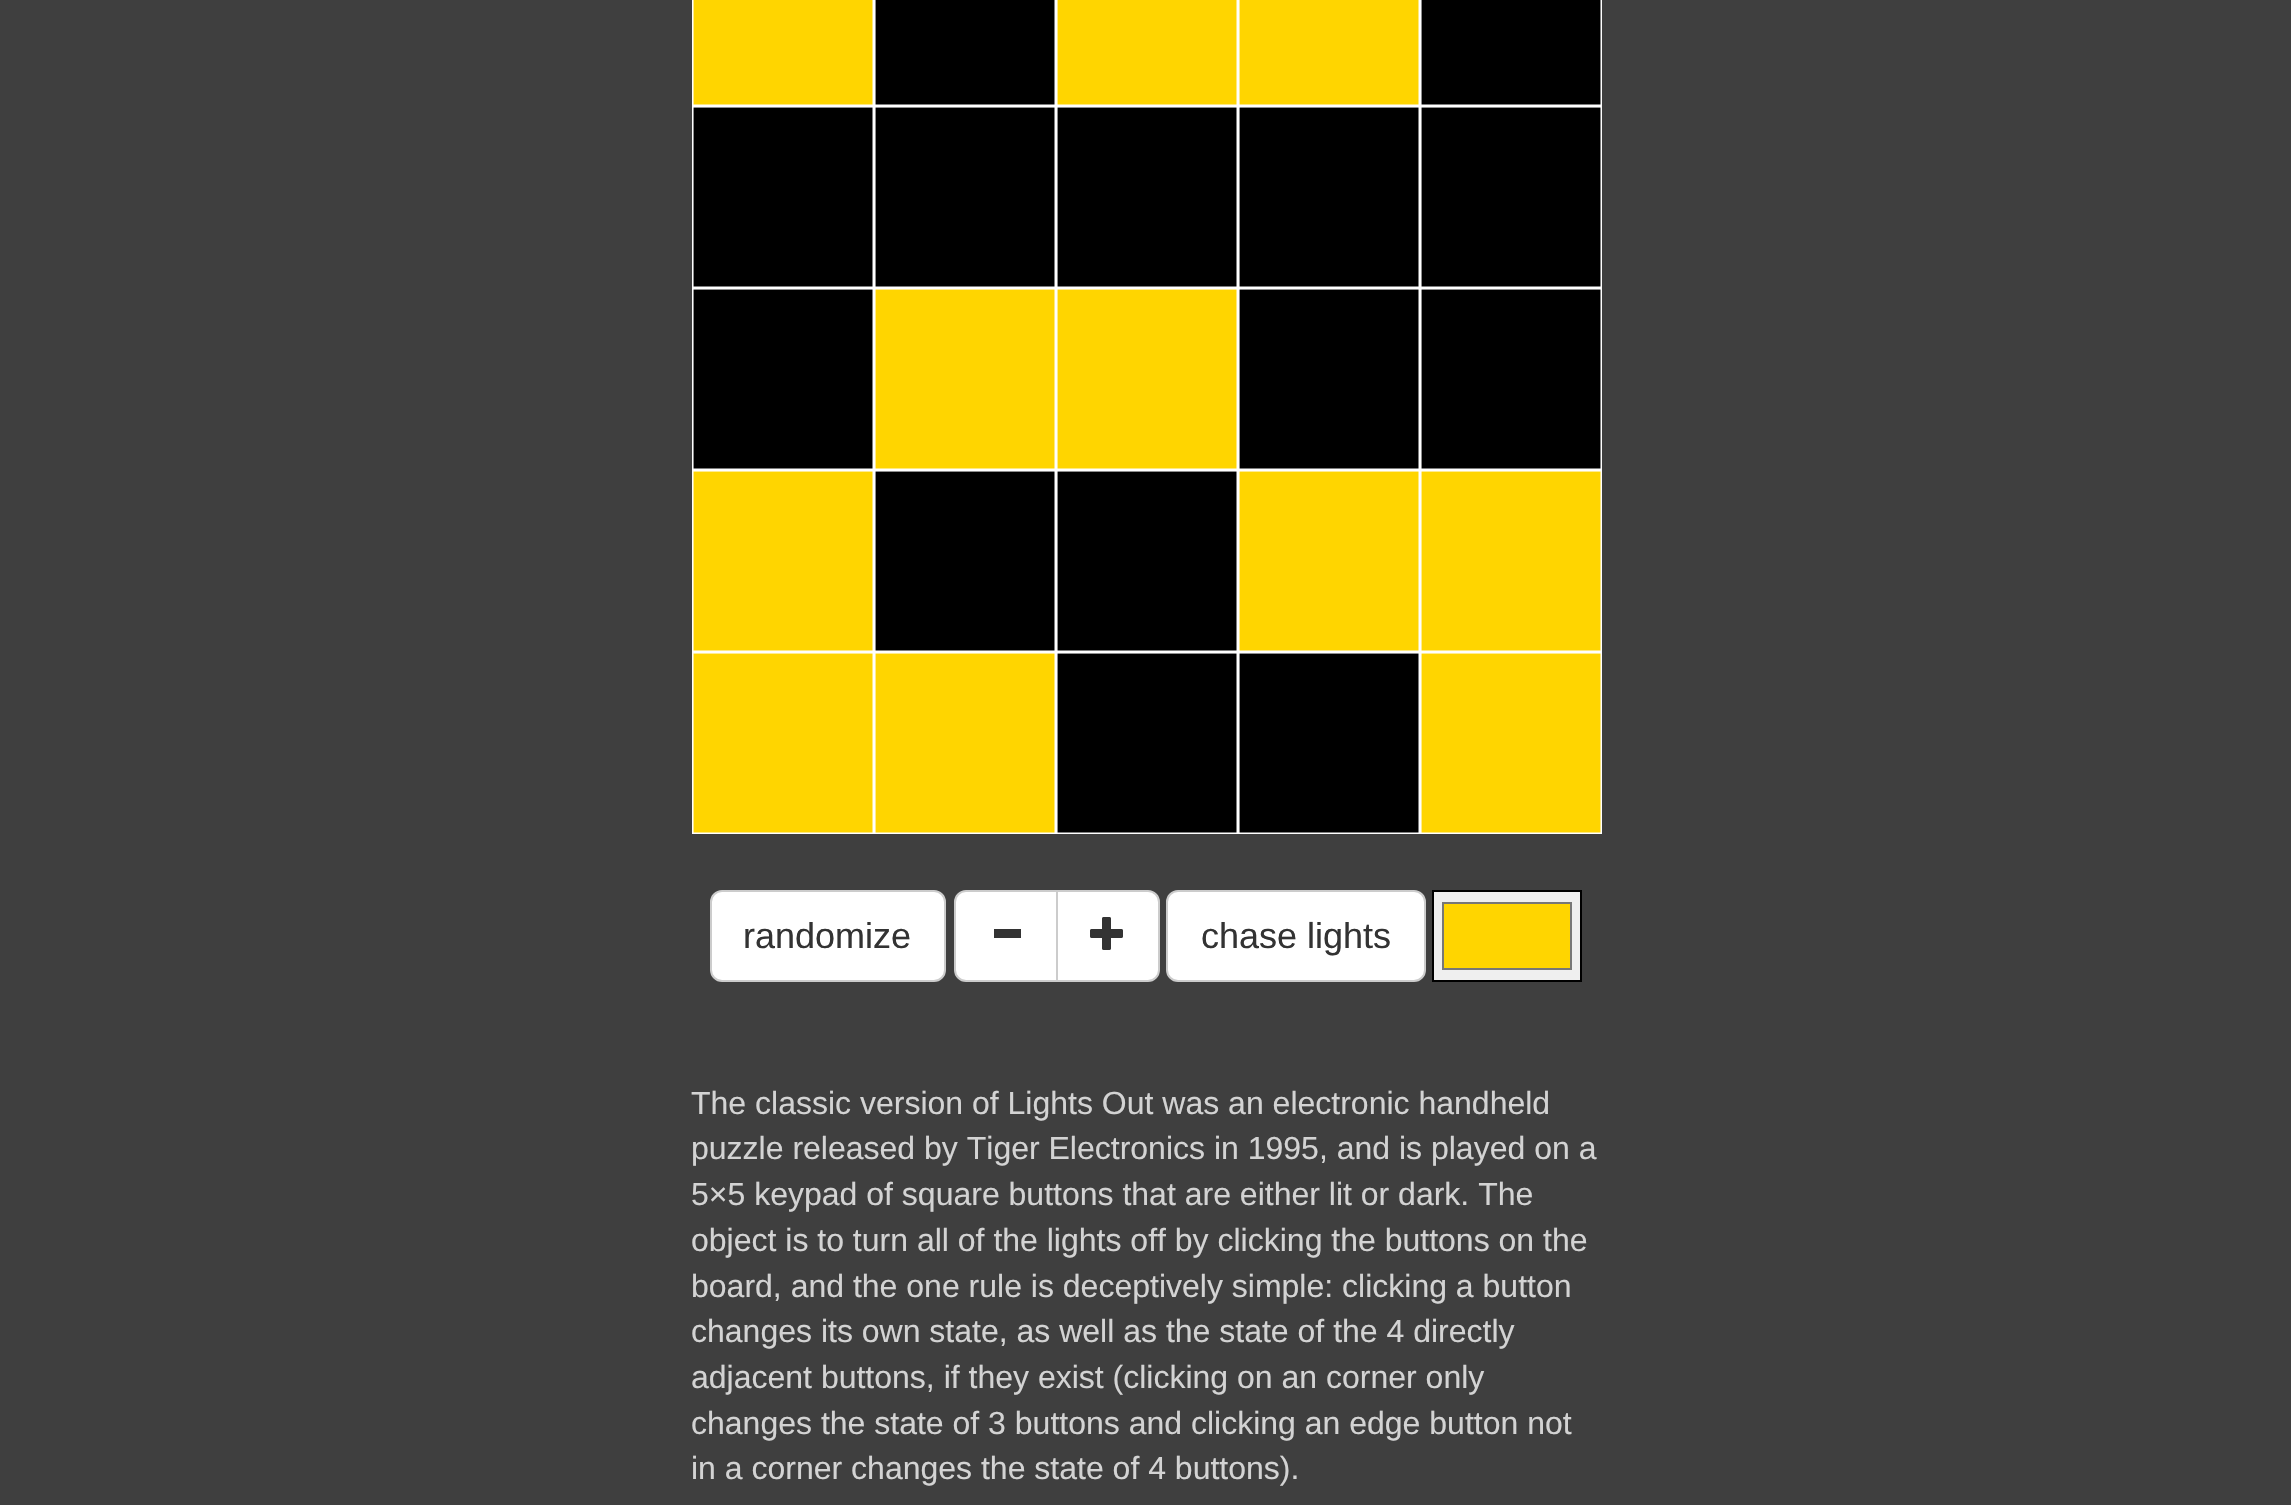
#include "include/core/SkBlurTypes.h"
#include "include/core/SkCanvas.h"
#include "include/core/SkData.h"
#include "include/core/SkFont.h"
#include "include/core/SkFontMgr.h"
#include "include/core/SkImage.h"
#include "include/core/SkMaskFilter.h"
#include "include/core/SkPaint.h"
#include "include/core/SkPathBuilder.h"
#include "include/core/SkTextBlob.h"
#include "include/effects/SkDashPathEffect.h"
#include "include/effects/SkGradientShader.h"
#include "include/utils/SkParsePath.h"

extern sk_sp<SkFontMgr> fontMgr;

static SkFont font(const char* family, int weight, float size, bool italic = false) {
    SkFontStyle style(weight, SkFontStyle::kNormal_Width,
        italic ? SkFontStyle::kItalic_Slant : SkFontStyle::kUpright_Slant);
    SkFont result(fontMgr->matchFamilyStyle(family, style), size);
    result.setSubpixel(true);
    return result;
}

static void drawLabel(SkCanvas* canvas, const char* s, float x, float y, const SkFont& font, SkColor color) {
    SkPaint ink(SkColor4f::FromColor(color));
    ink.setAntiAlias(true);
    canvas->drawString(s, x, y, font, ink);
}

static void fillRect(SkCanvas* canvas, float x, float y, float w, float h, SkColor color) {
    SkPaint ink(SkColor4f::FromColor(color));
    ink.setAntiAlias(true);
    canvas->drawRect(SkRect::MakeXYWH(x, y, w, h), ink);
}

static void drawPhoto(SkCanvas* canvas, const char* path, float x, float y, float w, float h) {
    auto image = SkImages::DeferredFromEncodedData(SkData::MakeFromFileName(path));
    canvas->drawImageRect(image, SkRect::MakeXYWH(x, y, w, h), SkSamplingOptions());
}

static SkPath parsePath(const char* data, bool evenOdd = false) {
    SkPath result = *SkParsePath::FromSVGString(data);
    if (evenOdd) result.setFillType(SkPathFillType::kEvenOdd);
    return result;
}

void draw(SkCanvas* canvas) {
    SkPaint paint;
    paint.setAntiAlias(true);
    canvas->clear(0xFF3F3F3F);
    fillRect(canvas, 693, 0, 908, 833, 0xFF000000);
    drawPhoto(canvas, "assets/img1.png", 692, 0, 910, 834);
    paint.setColor(0xFFFFFFFF);
    canvas->drawRoundRect(SkRect::MakeXYWH(711, 891, 234, 90), 11, 11, paint);
    paint.setStroke(true);
    paint.setStrokeWidth(2);
    paint.setColor(0xFFCCCCCC);
    canvas->drawRoundRect(SkRect::MakeXYWH(711, 891, 234, 90), 11, 11, paint);
    SkFont font1 = font("Liberation Sans", 400, 36);
    drawLabel(canvas, "randomize", 743, 948, font1, 0xFF333333);
    paint.setStroke(false);
    paint.setColor(0xFFFFFFFF);
    canvas->drawPath(parsePath("M966 891H1057V981H966C960 981 955 976 955 970V902C955 896 960 891 966 891Z"), paint);
    paint.setStroke(true);
    paint.setColor(0xFFCCCCCC);
    canvas->drawPath(parsePath("M966 891H1057V981H966C960 981 955 976 955 970V902C955 896 960 891 966 891Z"), paint);
    fillRect(canvas, 994, 929, 27, 9, 0xFF333333);
    paint.setStroke(false);
    paint.setColor(0xFFFFFFFF);
    canvas->drawPath(parsePath("M1057 891H1148C1154 891 1159 896 1159 902V970C1159 976 1154 981 1148 981H1057Z"), paint);
    paint.setStroke(true);
    paint.setColor(0xFFCCCCCC);
    canvas->drawPath(parsePath("M1057 891H1148C1154 891 1159 896 1159 902V970C1159 976 1154 981 1148 981H1057Z"), paint);
    drawPhoto(canvas, "assets/img2.png", 1090, 917, 33, 33);
    paint.setStroke(false);
    paint.setColor(0xFFFFFFFF);
    canvas->drawRoundRect(SkRect::MakeXYWH(1167, 891, 258, 90), 11, 11, paint);
    paint.setStroke(true);
    paint.setColor(0xFFCCCCCC);
    canvas->drawRoundRect(SkRect::MakeXYWH(1167, 891, 258, 90), 11, 11, paint);
    drawLabel(canvas, "chase lights", 1201, 948, font1, 0xFF333333);
    paint.setStroke(false);
    paint.setColor(0xFFEFEFEF);
    canvas->drawRect(SkRect::MakeXYWH(1433, 891, 148, 90), paint);
    paint.setStroke(true);
    paint.setColor(0xFF000000);
    canvas->drawRect(SkRect::MakeXYWH(1433, 891, 148, 90), paint);
    paint.setStroke(false);
    paint.setColor(0xFFFFD500);
    canvas->drawRect(SkRect::MakeXYWH(1443, 903, 128, 66), paint);
    paint.setStroke(true);
    paint.setColor(0xFF777777);
    canvas->drawRect(SkRect::MakeXYWH(1443, 903, 128, 66), paint);
    SkFont font2 = font("Liberation Sans", 400, 32);
    drawLabel(canvas, "The classic version of Lights Out was an electronic handheld", 691, 1114, font2, 0xFFD3D3D3);
    drawLabel(canvas, "puzzle released by Tiger Electronics in 1995, and is played on a", 691, 1159, font2, 0xFFD3D3D3);
    drawLabel(canvas, "5×5 keypad of square buttons that are either lit or dark. The", 691, 1205, font2, 0xFFD3D3D3);
    drawLabel(canvas, "object is to turn all of the lights off by clicking the buttons on the", 691, 1251, font2, 0xFFD3D3D3);
    drawLabel(canvas, "board, and the one rule is deceptively simple: clicking a button", 691, 1297, font2, 0xFFD3D3D3);
    drawLabel(canvas, "changes its own state, as well as the state of the 4 directly", 691, 1342, font2, 0xFFD3D3D3);
    drawLabel(canvas, "adjacent buttons, if they exist (clicking on an corner only", 691, 1388, font2, 0xFFD3D3D3);
    drawLabel(canvas, "changes the state of 3 buttons and clicking an edge button not", 691, 1434, font2, 0xFFD3D3D3);
    drawLabel(canvas, "in a corner changes the state of 4 buttons).", 691, 1479, font2, 0xFFD3D3D3);
}
